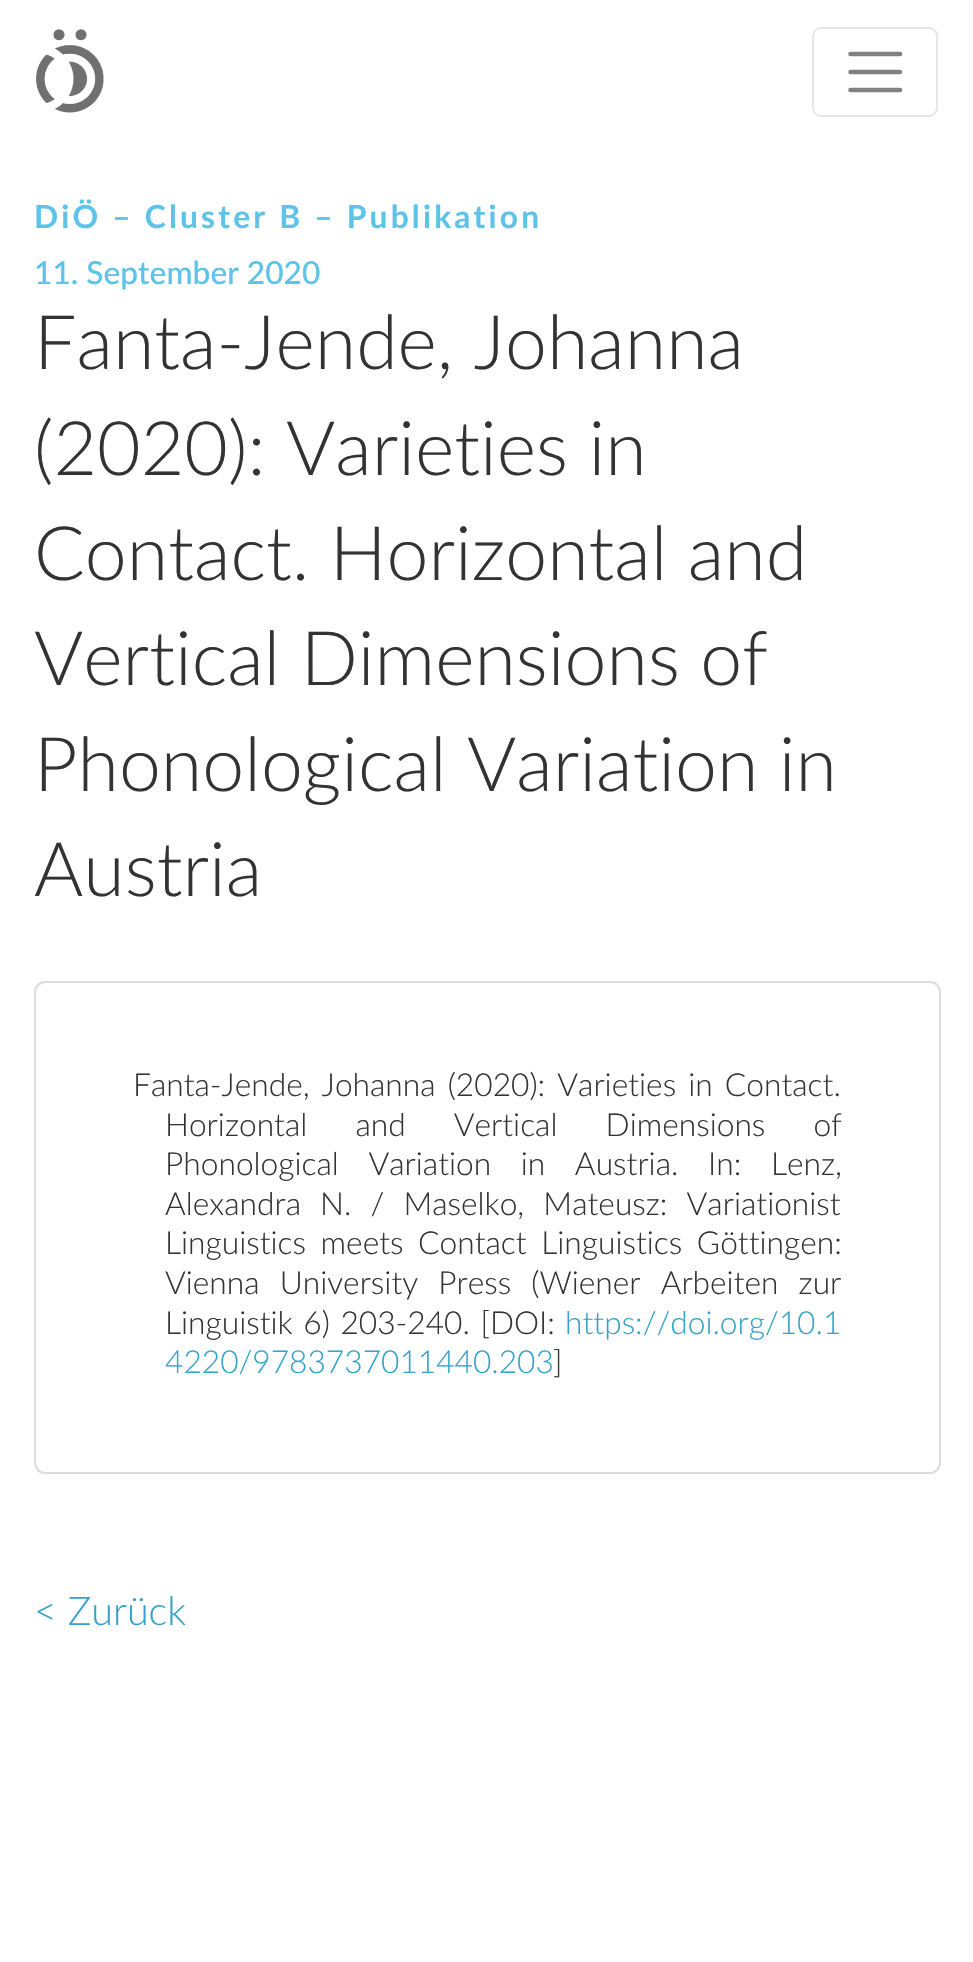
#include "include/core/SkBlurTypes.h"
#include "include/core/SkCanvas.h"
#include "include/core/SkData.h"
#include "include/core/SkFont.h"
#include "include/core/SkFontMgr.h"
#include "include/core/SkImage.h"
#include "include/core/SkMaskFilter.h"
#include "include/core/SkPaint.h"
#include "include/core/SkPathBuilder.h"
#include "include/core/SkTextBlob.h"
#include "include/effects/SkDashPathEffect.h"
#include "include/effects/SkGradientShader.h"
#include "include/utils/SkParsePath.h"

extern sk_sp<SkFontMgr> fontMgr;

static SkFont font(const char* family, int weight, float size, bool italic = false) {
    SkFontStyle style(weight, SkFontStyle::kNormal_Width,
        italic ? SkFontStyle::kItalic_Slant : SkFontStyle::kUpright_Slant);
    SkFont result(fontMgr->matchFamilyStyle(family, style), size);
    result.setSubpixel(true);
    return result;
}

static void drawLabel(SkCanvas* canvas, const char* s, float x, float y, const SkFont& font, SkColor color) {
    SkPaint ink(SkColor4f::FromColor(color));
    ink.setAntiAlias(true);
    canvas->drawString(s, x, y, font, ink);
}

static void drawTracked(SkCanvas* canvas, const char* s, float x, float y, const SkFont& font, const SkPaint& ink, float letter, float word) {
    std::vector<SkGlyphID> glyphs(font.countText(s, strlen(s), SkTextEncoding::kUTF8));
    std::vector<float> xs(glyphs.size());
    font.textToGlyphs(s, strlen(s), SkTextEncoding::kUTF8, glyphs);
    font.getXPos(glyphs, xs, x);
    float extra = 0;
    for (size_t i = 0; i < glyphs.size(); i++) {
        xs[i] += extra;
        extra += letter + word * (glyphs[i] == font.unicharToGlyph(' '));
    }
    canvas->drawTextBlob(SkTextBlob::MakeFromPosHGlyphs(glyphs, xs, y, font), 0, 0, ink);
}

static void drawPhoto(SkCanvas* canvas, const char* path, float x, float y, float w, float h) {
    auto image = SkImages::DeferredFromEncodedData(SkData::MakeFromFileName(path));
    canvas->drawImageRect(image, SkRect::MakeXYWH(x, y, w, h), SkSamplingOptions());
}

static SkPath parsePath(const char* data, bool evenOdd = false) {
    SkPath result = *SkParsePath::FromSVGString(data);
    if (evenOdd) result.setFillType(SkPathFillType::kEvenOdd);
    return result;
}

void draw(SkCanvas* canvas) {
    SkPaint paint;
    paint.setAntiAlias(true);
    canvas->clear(0xFFFFFFFF);
    drawPhoto(canvas, "assets/img1.png", 36, 29, 68, 84);
    paint.setStroke(true);
    paint.setStrokeWidth(2);
    paint.setColor(0xFFE6E6E6);
    canvas->drawRoundRect(SkRect::MakeXYWH(813, 28, 124, 88), 8, 8, paint);
    paint.setStrokeWidth(4.5f);
    paint.setStrokeCap(SkPaint::kRound_Cap);
    paint.setColor(0xFF808080);
    canvas->drawPath(parsePath("M850.5 54H900M850.5 72H900M850.5 90H900"), paint);
    SkFont font1 = font("Lato", 700, 31.7f);
    paint.setStroke(false);
    paint.setColor(0xFF5DC3E9);
    drawTracked(canvas, "DiÖ – Cluster B – Publikation", 34, 228, font1, paint, 3.2f, 0);
    SkFont font2 = font("Lato", 500, 31.7f);
    drawLabel(canvas, "11. September 2020", 34, 284, font2, 0xFF5DC3E9);
    SkFont font3 = font("Lato", 300, 75.25f);
    drawLabel(canvas, "Fanta-Jende, Johanna", 34, 369, font3, 0xFF333333);
    drawLabel(canvas, "(2020): Varieties in", 34, 475, font3, 0xFF333333);
    drawLabel(canvas, "Contact. Horizontal and", 34, 580, font3, 0xFF333333);
    drawLabel(canvas, "Vertical Dimensions of", 34, 685, font3, 0xFF333333);
    drawLabel(canvas, "Phonological Variation in", 34, 791, font3, 0xFF333333);
    drawLabel(canvas, "Austria", 34, 896, font3, 0xFF333333);
    paint.setStroke(true);
    paint.setStrokeWidth(2);
    paint.setStrokeCap(SkPaint::kButt_Cap);
    paint.setColor(0xFFDDDDDD);
    canvas->drawRoundRect(SkRect::MakeXYWH(35, 982, 905, 491), 10, 10, paint);
    SkFont font4 = font("Lato", 300, 31.7f);
    paint.setStroke(false);
    paint.setColor(0xFF333333);
    drawTracked(canvas, "Fanta-Jende, Johanna (2020): Varieties in Contact.", 133, 1096, font4, paint, 0, 3.5f);
    drawTracked(canvas, "Horizontal and Vertical Dimensions of", 165, 1136, font4, paint, 0, 39.5f);
    drawTracked(canvas, "Phonological Variation in Austria. In: Lenz,", 165, 1175, font4, paint, 0, 21);
    drawTracked(canvas, "Alexandra N. / Maselko, Mateusz: Variationist", 165, 1215, font4, paint, 0, 10.5f);
    drawTracked(canvas, "Linguistics meets Contact Linguistics Göttingen:", 165, 1254, font4, paint, 0, 6);
    drawTracked(canvas, "Vienna University Press (Wiener Arbeiten zur", 165, 1294, font4, paint, 0, 11.5f);
    drawTracked(canvas, "Linguistik 6) 203-240. [DOI:", 165, 1334, font4, paint, 0, 2);
    drawLabel(canvas, "https://doi.org/10.1", 565, 1334, font4, 0xFF34A2CB);
    drawLabel(canvas, "4220/9783737011440.203", 165, 1373, font4, 0xFF34A2CB);
    drawLabel(canvas, "]", 553, 1373, font4, 0xFF333333);
    SkFont font5 = font("Lato", 300, 39.5f);
    drawLabel(canvas, "< Zurück", 34, 1625, font5, 0xFF34A2CB);
}
